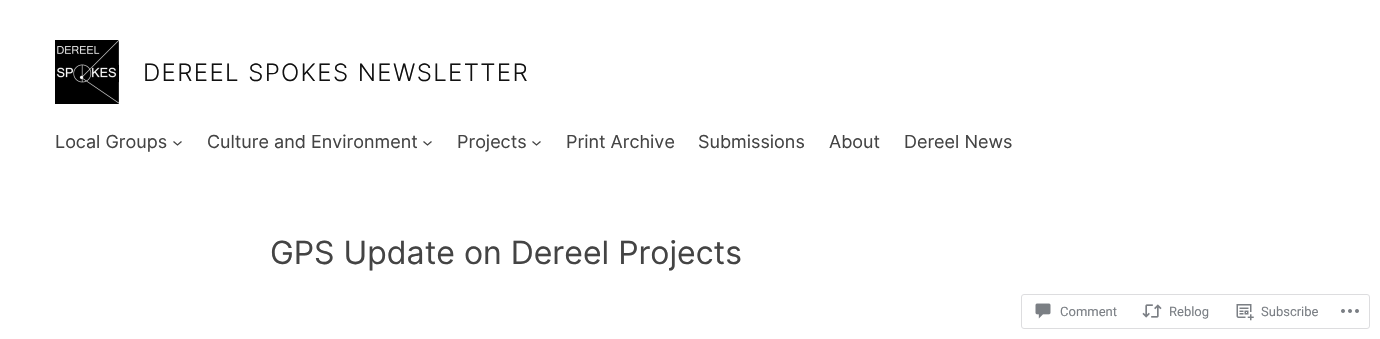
#include "include/core/SkBlurTypes.h"
#include "include/core/SkCanvas.h"
#include "include/core/SkData.h"
#include "include/core/SkFont.h"
#include "include/core/SkFontMgr.h"
#include "include/core/SkImage.h"
#include "include/core/SkMaskFilter.h"
#include "include/core/SkPaint.h"
#include "include/core/SkPathBuilder.h"
#include "include/core/SkTextBlob.h"
#include "include/effects/SkDashPathEffect.h"
#include "include/effects/SkGradientShader.h"
#include "include/utils/SkParsePath.h"

extern sk_sp<SkFontMgr> fontMgr;

static SkFont font(const char* family, int weight, float size, bool italic = false) {
    SkFontStyle style(weight, SkFontStyle::kNormal_Width,
        italic ? SkFontStyle::kItalic_Slant : SkFontStyle::kUpright_Slant);
    SkFont result(fontMgr->matchFamilyStyle(family, style), size);
    result.setSubpixel(true);
    return result;
}

static void drawLabel(SkCanvas* canvas, const char* s, float x, float y, const SkFont& font, SkColor color) {
    SkPaint ink(SkColor4f::FromColor(color));
    ink.setAntiAlias(true);
    canvas->drawString(s, x, y, font, ink);
}

static void drawTracked(SkCanvas* canvas, const char* s, float x, float y, const SkFont& font, const SkPaint& ink, float letter, float word) {
    std::vector<SkGlyphID> glyphs(font.countText(s, strlen(s), SkTextEncoding::kUTF8));
    std::vector<float> xs(glyphs.size());
    font.textToGlyphs(s, strlen(s), SkTextEncoding::kUTF8, glyphs);
    font.getXPos(glyphs, xs, x);
    float extra = 0;
    for (size_t i = 0; i < glyphs.size(); i++) {
        xs[i] += extra;
        extra += letter + word * (glyphs[i] == font.unicharToGlyph(' '));
    }
    canvas->drawTextBlob(SkTextBlob::MakeFromPosHGlyphs(glyphs, xs, y, font), 0, 0, ink);
}

static void drawPhoto(SkCanvas* canvas, const char* path, float x, float y, float w, float h) {
    auto image = SkImages::DeferredFromEncodedData(SkData::MakeFromFileName(path));
    canvas->drawImageRect(image, SkRect::MakeXYWH(x, y, w, h), SkSamplingOptions());
}

static SkPath parsePath(const char* data, bool evenOdd = false) {
    SkPath result = *SkParsePath::FromSVGString(data);
    if (evenOdd) result.setFillType(SkPathFillType::kEvenOdd);
    return result;
}

void draw(SkCanvas* canvas) {
    SkPaint paint;
    paint.setAntiAlias(true);
    canvas->clear(0xFFFFFFFF);
    drawPhoto(canvas, "assets/img1.png", 55, 40, 64, 64);
    SkFont font1 = font("Inter", 300, 24);
    paint.setColor(0xFF111111);
    drawTracked(canvas, "DEREEL SPOKES NEWSLETTER", 143, 81, font1, paint, 1.4f, 0);
    SkFont font2 = font("Inter", 400, 18);
    drawLabel(canvas, "Local Groups", 55, 148, font2, 0xFF444444);
    paint.setStroke(true);
    paint.setStrokeWidth(1.3f);
    paint.setColor(0xFF444444);
    canvas->drawPath(parsePath("M173.5 141.5L177.5 145L181.5 141.5"), paint);
    drawLabel(canvas, "Culture and Environment", 207, 148, font2, 0xFF444444);
    canvas->drawPath(parsePath("M423.5 141.5L427.5 145L431.5 141.5"), paint);
    drawLabel(canvas, "Projects", 457, 148, font2, 0xFF444444);
    canvas->drawPath(parsePath("M532.5 141.5L536.5 145L540.5 141.5"), paint);
    drawLabel(canvas, "Print Archive", 566, 148, font2, 0xFF444444);
    drawLabel(canvas, "Submissions", 698, 148, font2, 0xFF444444);
    drawLabel(canvas, "About", 829, 148, font2, 0xFF444444);
    drawLabel(canvas, "Dereel News", 904, 148, font2, 0xFF444444);
    SkFont font3 = font("Inter", 400, 32);
    drawLabel(canvas, "GPS Update on Dereel Projects", 270, 264, font3, 0xFF444444);
    paint.setStrokeWidth(1);
    paint.setColor(0xFFDDDDDF);
    canvas->drawRoundRect(SkRect::MakeXYWH(1021.5f, 294.5f, 348, 34), 2.5f, 2.5f, paint);
    drawPhoto(canvas, "assets/img2.png", 1035, 303, 16, 16);
    SkFont font4 = font("Roboto", 400, 13);
    drawLabel(canvas, "Comment", 1060, 316, font4, 0xFF7B7F85);
    drawPhoto(canvas, "assets/img3.png", 1142, 304, 20, 14);
    drawLabel(canvas, "Reblog", 1169, 316, font4, 0xFF7B7F85);
    drawPhoto(canvas, "assets/img4.png", 1236, 304, 18, 17);
    drawLabel(canvas, "Subscribe", 1261, 316, font4, 0xFF7B7F85);
    drawPhoto(canvas, "assets/img5.png", 1341, 309, 18, 4);
}
